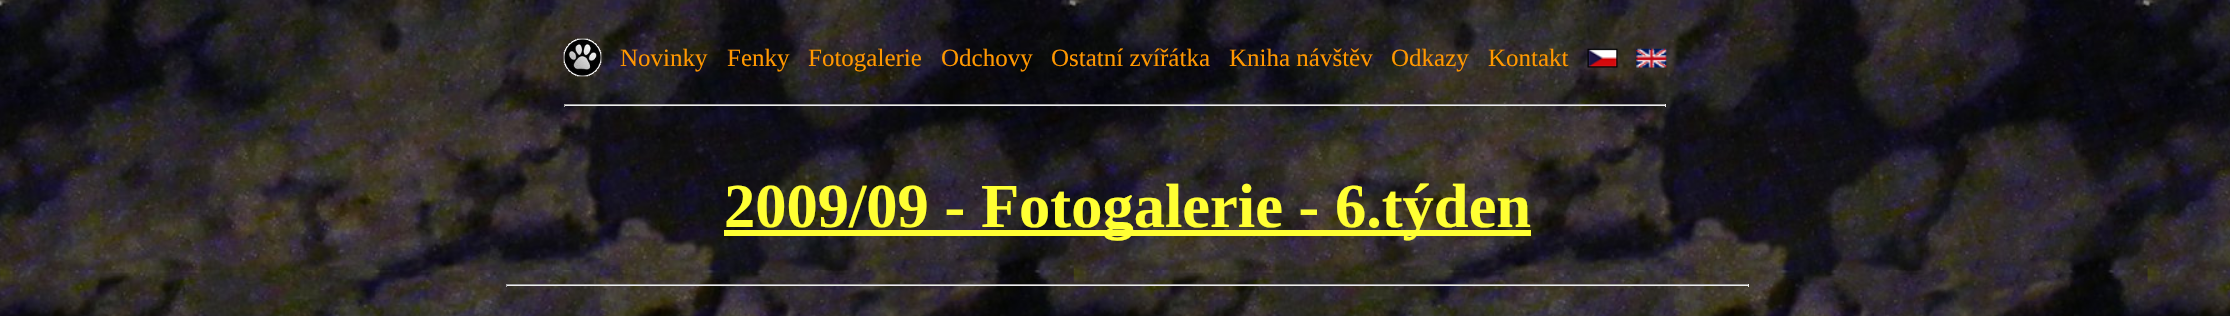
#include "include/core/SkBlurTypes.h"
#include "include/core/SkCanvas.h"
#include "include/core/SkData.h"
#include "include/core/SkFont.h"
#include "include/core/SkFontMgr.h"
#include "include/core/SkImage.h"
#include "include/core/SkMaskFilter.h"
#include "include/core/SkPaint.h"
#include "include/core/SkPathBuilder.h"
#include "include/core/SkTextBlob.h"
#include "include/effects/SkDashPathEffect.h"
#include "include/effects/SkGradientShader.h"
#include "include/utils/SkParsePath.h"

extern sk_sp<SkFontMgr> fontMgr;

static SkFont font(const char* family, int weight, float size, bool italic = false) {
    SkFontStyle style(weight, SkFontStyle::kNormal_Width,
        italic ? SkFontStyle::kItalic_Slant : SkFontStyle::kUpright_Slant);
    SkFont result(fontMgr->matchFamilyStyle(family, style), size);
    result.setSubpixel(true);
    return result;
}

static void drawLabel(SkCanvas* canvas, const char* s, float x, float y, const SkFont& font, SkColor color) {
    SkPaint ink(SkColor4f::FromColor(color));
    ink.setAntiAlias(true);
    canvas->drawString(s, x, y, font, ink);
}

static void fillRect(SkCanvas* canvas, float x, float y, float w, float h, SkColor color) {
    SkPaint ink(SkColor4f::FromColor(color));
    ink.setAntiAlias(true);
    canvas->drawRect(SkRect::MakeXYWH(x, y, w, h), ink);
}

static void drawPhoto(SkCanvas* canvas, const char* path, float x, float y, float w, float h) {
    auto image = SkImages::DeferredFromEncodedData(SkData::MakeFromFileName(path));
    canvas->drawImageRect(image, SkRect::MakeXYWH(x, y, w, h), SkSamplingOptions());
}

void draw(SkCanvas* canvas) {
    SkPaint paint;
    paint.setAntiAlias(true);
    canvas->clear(0xFFFFFFFF);
    drawPhoto(canvas, "assets/img1.png", 0, 0, 2230, 316);
    drawPhoto(canvas, "assets/img2.png", 563, 38, 39, 39);
    SkFont font1 = font("Liberation Serif", 400, 25);
    drawLabel(canvas, "Novinky", 620, 66, font1, 0xFFFF9700);
    drawLabel(canvas, "Fenky", 727, 66, font1, 0xFFFF9700);
    drawLabel(canvas, "Fotogalerie", 808, 66, font1, 0xFFFF9700);
    drawLabel(canvas, "Odchovy", 941, 66, font1, 0xFFFF9700);
    drawLabel(canvas, "Ostatní zvířátka", 1051, 66, font1, 0xFFFF9700);
    drawLabel(canvas, "Kniha návštěv", 1229, 66, font1, 0xFFFF9700);
    drawLabel(canvas, "Odkazy", 1391, 66, font1, 0xFFFF9700);
    drawLabel(canvas, "Kontakt", 1488, 66, font1, 0xFFFF9700);
    drawPhoto(canvas, "assets/img3.png", 1587, 48, 31, 20);
    drawPhoto(canvas, "assets/img4.png", 1636, 48, 31, 20);
    fillRect(canvas, 564, 104, 1102, 1, 0xFF9F9F9F);
    fillRect(canvas, 1665, 104, 1, 3, 0xFFEEEEEE);
    fillRect(canvas, 564, 105, 1102, 1, 0xFFEEEEEE);
    fillRect(canvas, 564, 104, 1, 3, 0xFF9F9F9F);
    fillRect(canvas, 724, 230, 807, 6, 0xFFFFFF33);
    SkFont font2 = font("Liberation Serif", 700, 62.5f);
    drawLabel(canvas, "2009/09 - Fotogalerie - 6.týden", 724, 227, font2, 0xFFFFFF33);
    fillRect(canvas, 506, 284, 1243, 1, 0xFF9F9F9F);
    fillRect(canvas, 1748, 284, 1, 3, 0xFFEEEEEE);
    fillRect(canvas, 506, 285, 1243, 1, 0xFFEEEEEE);
    fillRect(canvas, 506, 284, 1, 3, 0xFF9F9F9F);
}
